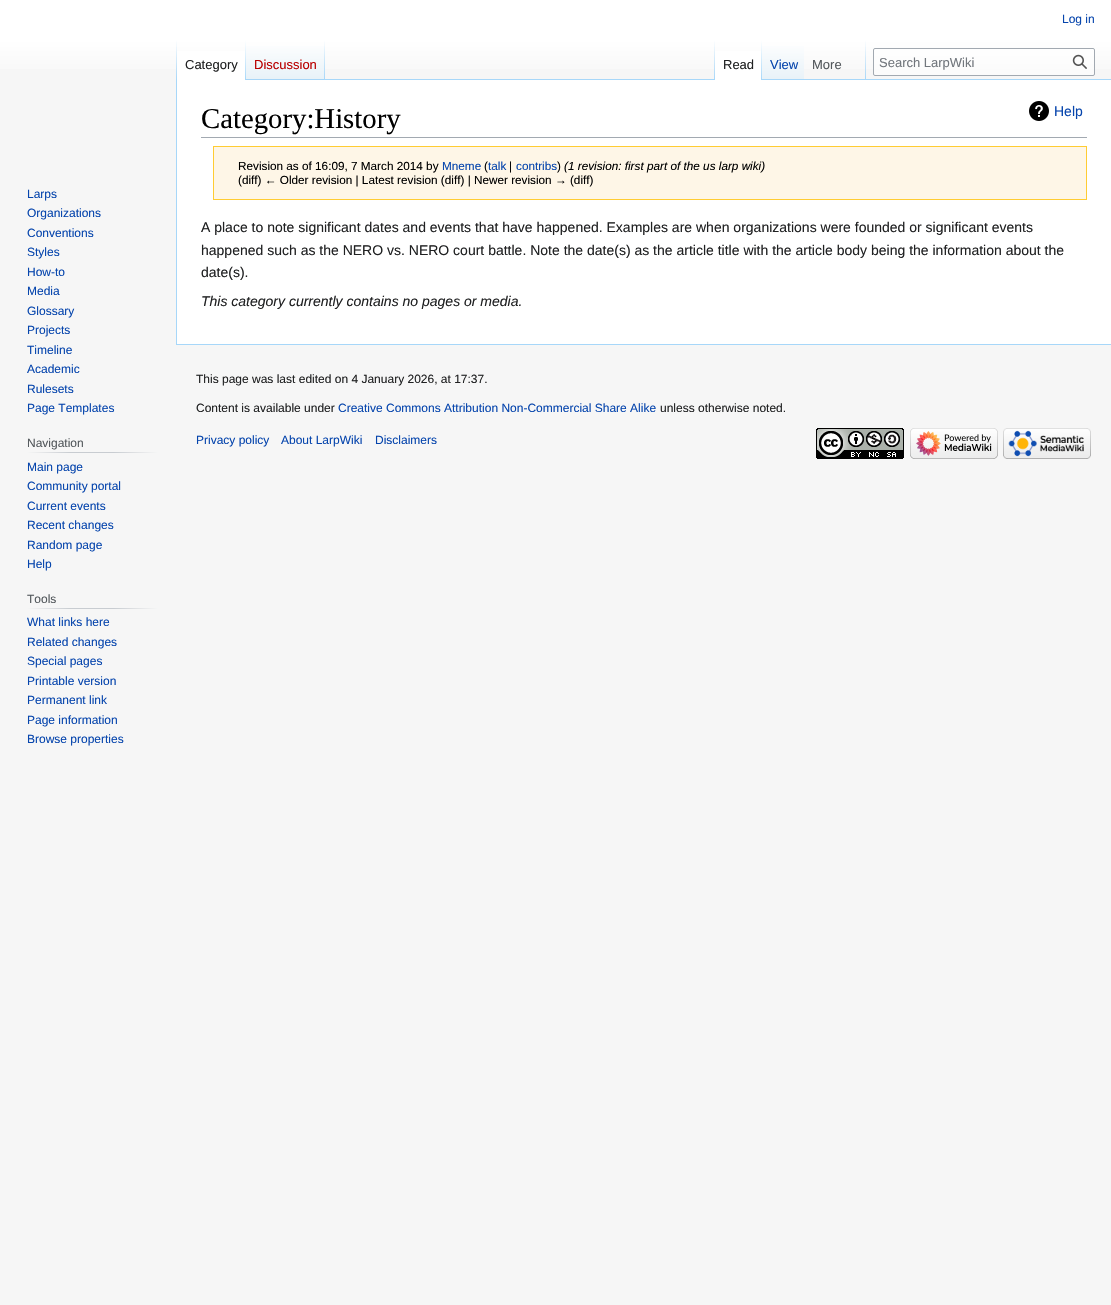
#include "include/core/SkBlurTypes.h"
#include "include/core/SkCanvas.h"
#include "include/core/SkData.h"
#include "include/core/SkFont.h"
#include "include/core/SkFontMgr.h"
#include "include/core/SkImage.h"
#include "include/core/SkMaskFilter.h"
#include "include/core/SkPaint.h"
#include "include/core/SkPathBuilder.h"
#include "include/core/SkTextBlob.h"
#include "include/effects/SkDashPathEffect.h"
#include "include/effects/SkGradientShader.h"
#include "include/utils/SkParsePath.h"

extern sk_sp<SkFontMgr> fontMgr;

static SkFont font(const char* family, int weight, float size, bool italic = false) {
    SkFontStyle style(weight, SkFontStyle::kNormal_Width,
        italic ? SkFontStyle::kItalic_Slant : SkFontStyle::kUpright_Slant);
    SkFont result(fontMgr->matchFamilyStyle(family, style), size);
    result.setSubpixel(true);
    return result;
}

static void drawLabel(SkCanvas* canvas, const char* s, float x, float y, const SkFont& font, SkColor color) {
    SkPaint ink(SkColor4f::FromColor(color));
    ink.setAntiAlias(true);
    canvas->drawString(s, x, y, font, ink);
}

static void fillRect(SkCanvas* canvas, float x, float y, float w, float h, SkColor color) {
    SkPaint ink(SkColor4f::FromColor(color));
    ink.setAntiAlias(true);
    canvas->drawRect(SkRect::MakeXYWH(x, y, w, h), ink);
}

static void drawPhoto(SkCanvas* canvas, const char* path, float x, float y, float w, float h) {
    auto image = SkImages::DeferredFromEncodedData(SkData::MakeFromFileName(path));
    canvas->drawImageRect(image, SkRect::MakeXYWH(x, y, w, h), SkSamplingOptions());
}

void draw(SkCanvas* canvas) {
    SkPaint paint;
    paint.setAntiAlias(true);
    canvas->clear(0xFFF6F6F6);
    {
        const SkColor colors[] = {0xFFFFFFFF, 0xFFF6F6F6};
        const float stops[] = {0.5f, 1};
        const SkPoint ends[] = {{556, 0}, {556, 80}};
        paint.setShader(SkGradientShader::MakeLinear(ends, colors, stops, 2, SkTileMode::kClamp));
        paint.setAlpha(255);
    }
    canvas->drawRect(SkRect::MakeXYWH(0, 0, 1111, 69), paint);
    SkFont font1 = font("Liberation Sans", 400, 12);
    drawLabel(canvas, "Log in", 1062, 23, font1, 0xFF0645AD);
    fillRect(canvas, 176, 344, 935, 1, 0xFFA7D7F9);
    fillRect(canvas, 176, 79, 1, 266, 0xFFA7D7F9);
    {
        const SkColor colors[] = {0x00A7D7F9, 0xFFA7D7F9};
        const float stops[] = {0, 1};
        const SkPoint ends[] = {{177, 40}, {177, 80}};
        paint.setShader(SkGradientShader::MakeLinear(ends, colors, stops, 2, SkTileMode::kClamp));
        paint.setAlpha(255);
    }
    canvas->drawRect(SkRect::MakeXYWH(176, 40, 1, 40), paint);
    fillRect(canvas, 177, 51, 68, 29, 0xFFFFFFFF);
    {
        const SkColor colors[] = {0xFFFFFFFF, 0xFFA7D7F9};
        const float stops[] = {0, 1};
        const SkPoint ends[] = {{246, 40}, {246, 80}};
        paint.setShader(SkGradientShader::MakeLinear(ends, colors, stops, 2, SkTileMode::kClamp));
        paint.setAlpha(255);
    }
    canvas->drawRect(SkRect::MakeXYWH(245, 40, 1, 40), paint);
    SkFont font2 = font("Liberation Sans", 400, 13);
    drawLabel(canvas, "Category", 185, 69, font2, 0xFF202122);
    {
        const SkColor colors[] = {0xFF77C1F6, 0xFFE8F2F8, 0xFFFFFFFF};
        const float stops[] = {0, 0.03f, 1};
        const SkPoint ends[] = {{286, 80}, {286, 40}};
        paint.setShader(SkGradientShader::MakeLinear(ends, colors, stops, 3, SkTileMode::kClamp));
        paint.setAlpha(255);
    }
    canvas->drawRect(SkRect::MakeXYWH(246, 46, 79, 34), paint);
    {
        const SkColor colors[] = {0x00A7D7F9, 0xFFA7D7F9};
        const float stops[] = {0, 1};
        const SkPoint ends[] = {{325, 40}, {325, 80}};
        paint.setShader(SkGradientShader::MakeLinear(ends, colors, stops, 2, SkTileMode::kClamp));
        paint.setAlpha(255);
    }
    canvas->drawRect(SkRect::MakeXYWH(324, 40, 1, 40), paint);
    drawLabel(canvas, "Discussion", 254, 69, font2, 0xFFBA0000);
    fillRect(canvas, 325, 79, 786, 1, 0xFFA7D7F9);
    {
        const SkColor colors[] = {0x00A7D7F9, 0xFFA7D7F9};
        const float stops[] = {0, 1};
        const SkPoint ends[] = {{715, 40}, {715, 80}};
        paint.setShader(SkGradientShader::MakeLinear(ends, colors, stops, 2, SkTileMode::kClamp));
        paint.setAlpha(255);
    }
    canvas->drawRect(SkRect::MakeXYWH(714, 40, 1, 40), paint);
    fillRect(canvas, 715, 51, 46, 29, 0xFFFFFFFF);
    {
        const SkColor colors[] = {0xFFFFFFFF, 0xFFA7D7F9};
        const float stops[] = {0, 1};
        const SkPoint ends[] = {{762, 40}, {762, 80}};
        paint.setShader(SkGradientShader::MakeLinear(ends, colors, stops, 2, SkTileMode::kClamp));
        paint.setAlpha(255);
    }
    canvas->drawRect(SkRect::MakeXYWH(761, 40, 1, 40), paint);
    drawLabel(canvas, "Read", 723, 69, font2, 0xFF202122);
    {
        const SkColor colors[] = {0xFF77C1F6, 0xFFE8F2F8, 0xFFFFFFFF};
        const float stops[] = {0, 0.03f, 1};
        const SkPoint ends[] = {{783, 80}, {783, 40}};
        paint.setShader(SkGradientShader::MakeLinear(ends, colors, stops, 3, SkTileMode::kClamp));
        paint.setAlpha(255);
    }
    canvas->drawRect(SkRect::MakeXYWH(762, 46, 42, 33), paint);
    drawLabel(canvas, "View", 770, 69, font2, 0xFF0645AD);
    {
        const SkColor colors[] = {0x00A7D7F9, 0xFFA7D7F9};
        const float stops[] = {0, 1};
        const SkPoint ends[] = {{866, 40}, {866, 80}};
        paint.setShader(SkGradientShader::MakeLinear(ends, colors, stops, 2, SkTileMode::kClamp));
        paint.setAlpha(255);
    }
    canvas->drawRect(SkRect::MakeXYWH(865, 40, 1, 40), paint);
    drawLabel(canvas, "More", 812, 69, font2, 0xFF54595D);
    paint.setShader(nullptr);
    paint.setColor(0x80FFFFFF);
    canvas->drawRoundRect(SkRect::MakeXYWH(873.5f, 48.5f, 221, 27), 1.5f, 1.5f, paint);
    paint.setStroke(true);
    paint.setStrokeWidth(1);
    paint.setColor(0xFFA2A9B1);
    canvas->drawRoundRect(SkRect::MakeXYWH(873.5f, 48.5f, 221, 27), 1.5f, 1.5f, paint);
    drawLabel(canvas, "Search LarpWiki", 879, 67, font2, 0xFF72777D);
    drawPhoto(canvas, "assets/img1.png", 1072, 54, 15, 15);
    drawLabel(canvas, "Larps", 27, 198, font1, 0xFF0645AD);
    drawLabel(canvas, "Organizations", 27, 217, font1, 0xFF0645AD);
    drawLabel(canvas, "Conventions", 27, 237, font1, 0xFF0645AD);
    drawLabel(canvas, "Styles", 27, 256, font1, 0xFF0645AD);
    drawLabel(canvas, "How-to", 27, 276, font1, 0xFF0645AD);
    drawLabel(canvas, "Media", 27, 295, font1, 0xFF0645AD);
    drawLabel(canvas, "Glossary", 27, 315, font1, 0xFF0645AD);
    drawLabel(canvas, "Projects", 27, 334, font1, 0xFF0645AD);
    drawLabel(canvas, "Timeline", 27, 354, font1, 0xFF0645AD);
    drawLabel(canvas, "Academic", 27, 373, font1, 0xFF0645AD);
    drawLabel(canvas, "Rulesets", 27, 393, font1, 0xFF0645AD);
    drawLabel(canvas, "Page Templates", 27, 412, font1, 0xFF0645AD);
    paint.setStroke(false);
    {
        const SkColor colors[] = {0xFFF6F6F6, 0xFFC8CCD1, 0xFFC8CCD1, 0xFFF6F6F6};
        const float stops[] = {0, 0.33f, 0.66f, 1};
        const SkPoint ends[] = {{27, 453}, {158, 453}};
        paint.setShader(SkGradientShader::MakeLinear(ends, colors, stops, 4, SkTileMode::kClamp));
        paint.setAlpha(255);
    }
    canvas->drawRect(SkRect::MakeXYWH(27, 452, 131, 1), paint);
    drawLabel(canvas, "Navigation", 27, 447, font1, 0xFF54595D);
    drawLabel(canvas, "Main page", 27, 471, font1, 0xFF0645AD);
    drawLabel(canvas, "Community portal", 27, 490, font1, 0xFF0645AD);
    drawLabel(canvas, "Current events", 27, 510, font1, 0xFF0645AD);
    drawLabel(canvas, "Recent changes", 27, 529, font1, 0xFF0645AD);
    drawLabel(canvas, "Random page", 27, 549, font1, 0xFF0645AD);
    drawLabel(canvas, "Help", 27, 568, font1, 0xFF0645AD);
    {
        const SkColor colors[] = {0xFFF6F6F6, 0xFFC8CCD1, 0xFFC8CCD1, 0xFFF6F6F6};
        const float stops[] = {0, 0.33f, 0.66f, 1};
        const SkPoint ends[] = {{27, 609}, {158, 609}};
        paint.setShader(SkGradientShader::MakeLinear(ends, colors, stops, 4, SkTileMode::kClamp));
        paint.setAlpha(255);
    }
    canvas->drawRect(SkRect::MakeXYWH(27, 608, 131, 1), paint);
    drawLabel(canvas, "Tools", 27, 603, font1, 0xFF54595D);
    drawLabel(canvas, "What links here", 27, 626, font1, 0xFF0645AD);
    drawLabel(canvas, "Related changes", 27, 646, font1, 0xFF0645AD);
    drawLabel(canvas, "Special pages", 27, 665, font1, 0xFF0645AD);
    drawLabel(canvas, "Printable version", 27, 685, font1, 0xFF0645AD);
    drawLabel(canvas, "Permanent link", 27, 704, font1, 0xFF0645AD);
    drawLabel(canvas, "Page information", 27, 724, font1, 0xFF0645AD);
    drawLabel(canvas, "Browse properties", 27, 743, font1, 0xFF0645AD);
    fillRect(canvas, 177, 80, 934, 264, 0xFFFFFFFF);
    fillRect(canvas, 201, 137, 886, 1, 0xFFA2A9B1);
    SkFont font3 = font("Liberation Serif", 400, 28.75f);
    drawLabel(canvas, "Category:History", 201, 128, font3, 0xFF000000);
    drawPhoto(canvas, "assets/img2.png", 1029, 101, 20, 20);
    SkFont font4 = font("Liberation Sans", 400, 14);
    drawLabel(canvas, "Help", 1054, 116, font4, 0xFF0645AD);
    paint.setShader(nullptr);
    paint.setColor(0xFFFEF6E7);
    canvas->drawRect(SkRect::MakeXYWH(213.5f, 146.5f, 873, 53), paint);
    paint.setStroke(true);
    paint.setColor(0xFFFFCC33);
    canvas->drawRect(SkRect::MakeXYWH(213.5f, 146.5f, 873, 53), paint);
    SkFont font5 = font("Liberation Sans", 400, 11.75f);
    drawLabel(canvas, "Revision as of 16:09, 7 March 2014 by", 238, 170, font5, 0xFF000000);
    drawLabel(canvas, "Mneme", 442, 170, font5, 0xFF0645AD);
    drawLabel(canvas, "(", 484, 170, font5, 0xFF000000);
    drawLabel(canvas, "talk", 488, 170, font5, 0xFF0645AD);
    drawLabel(canvas, "|", 509, 170, font5, 0xFF000000);
    drawLabel(canvas, "contribs", 516, 170, font5, 0xFF0645AD);
    drawLabel(canvas, ")", 557, 170, font5, 0xFF000000);
    SkFont font6 = font("Liberation Sans", 400, 11.75f, true);
    drawLabel(canvas, "(1 revision: first part of the us larp wiki)", 564, 170, font6, 0xFF000000);
    drawLabel(canvas, "(diff) ← Older revision | Latest revision (diff) | Newer revision → (diff)", 238, 184, font5, 0xFF000000);
    drawLabel(canvas, "A place to note significant dates and events that have happened. Examples are when organizations were founded or significant events", 201, 232, font4, 0xFF202122);
    drawLabel(canvas, "happened such as the NERO vs. NERO court battle. Note the date(s) as the article title with the article body being the information about the", 201, 255, font4, 0xFF202122);
    drawLabel(canvas, "date(s).", 201, 277, font4, 0xFF202122);
    SkFont font7 = font("Liberation Sans", 400, 14, true);
    drawLabel(canvas, "This category currently contains no pages or media.", 201, 306, font7, 0xFF202122);
    drawLabel(canvas, "This page was last edited on 4 January 2026, at 17:37.", 196, 383, font1, 0xFF202122);
    drawLabel(canvas, "Content is available under", 196, 412, font1, 0xFF202122);
    drawLabel(canvas, "Creative Commons Attribution Non-Commercial Share Alike", 338, 412, font1, 0xFF0645AD);
    drawLabel(canvas, "unless otherwise noted.", 660, 412, font1, 0xFF202122);
    drawLabel(canvas, "Privacy policy", 196, 444, font1, 0xFF0645AD);
    drawLabel(canvas, "About LarpWiki", 281, 444, font1, 0xFF0645AD);
    drawLabel(canvas, "Disclaimers", 375, 444, font1, 0xFF0645AD);
    drawPhoto(canvas, "assets/img3.png", 816, 428, 88, 31);
    drawPhoto(canvas, "assets/img4.png", 910, 428, 88, 31);
    drawPhoto(canvas, "assets/img5.png", 1003, 428, 88, 31);
}
